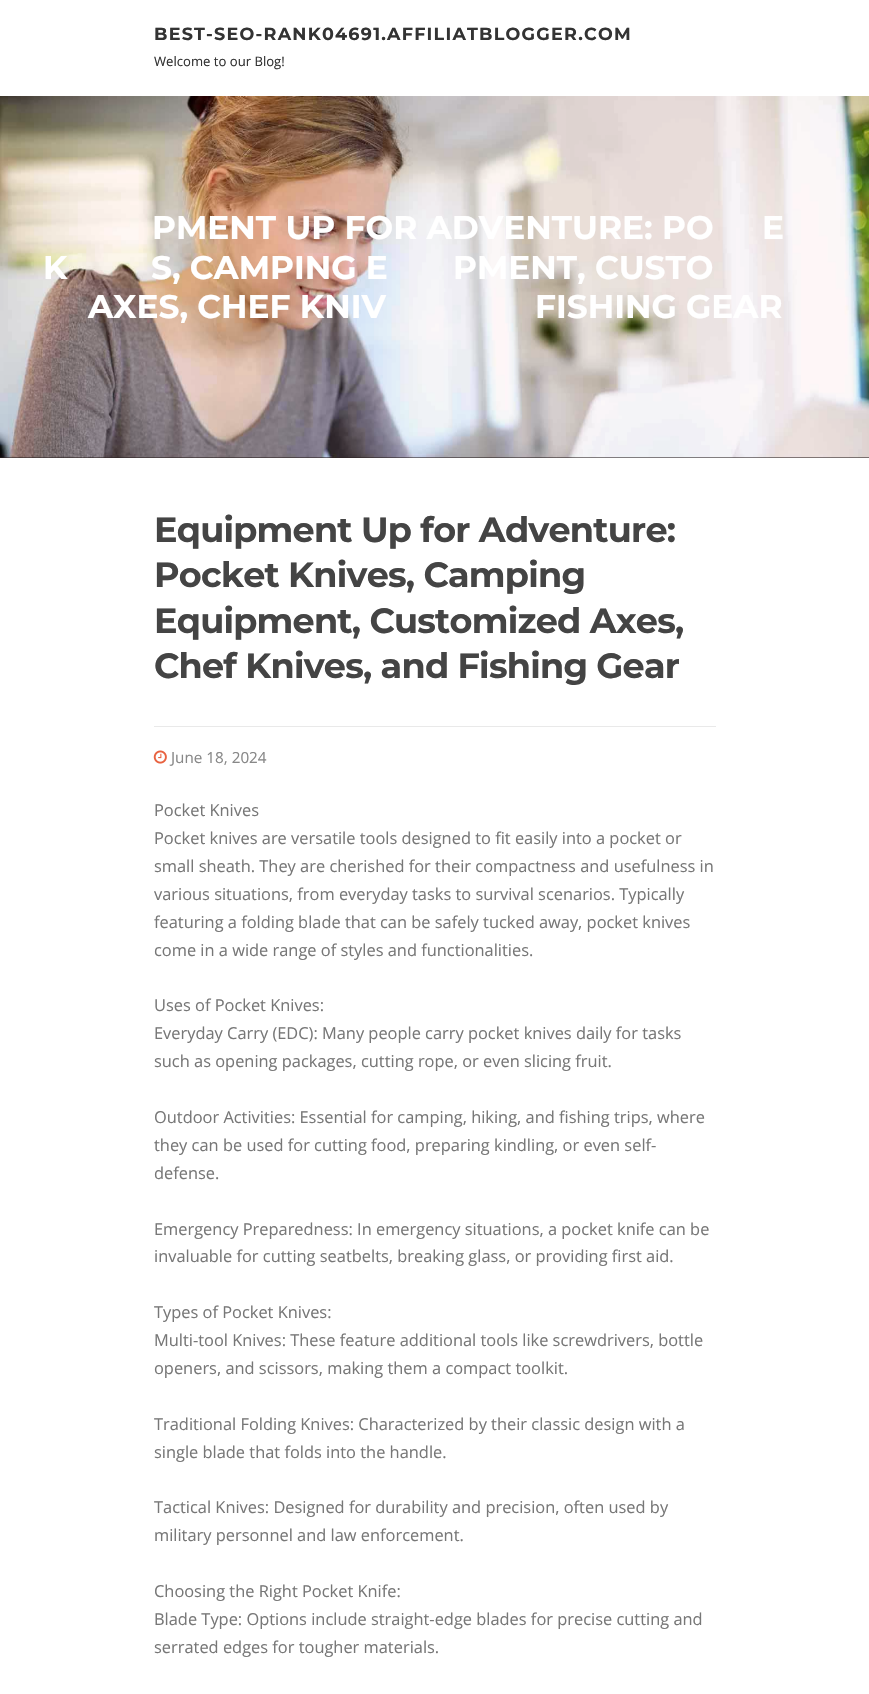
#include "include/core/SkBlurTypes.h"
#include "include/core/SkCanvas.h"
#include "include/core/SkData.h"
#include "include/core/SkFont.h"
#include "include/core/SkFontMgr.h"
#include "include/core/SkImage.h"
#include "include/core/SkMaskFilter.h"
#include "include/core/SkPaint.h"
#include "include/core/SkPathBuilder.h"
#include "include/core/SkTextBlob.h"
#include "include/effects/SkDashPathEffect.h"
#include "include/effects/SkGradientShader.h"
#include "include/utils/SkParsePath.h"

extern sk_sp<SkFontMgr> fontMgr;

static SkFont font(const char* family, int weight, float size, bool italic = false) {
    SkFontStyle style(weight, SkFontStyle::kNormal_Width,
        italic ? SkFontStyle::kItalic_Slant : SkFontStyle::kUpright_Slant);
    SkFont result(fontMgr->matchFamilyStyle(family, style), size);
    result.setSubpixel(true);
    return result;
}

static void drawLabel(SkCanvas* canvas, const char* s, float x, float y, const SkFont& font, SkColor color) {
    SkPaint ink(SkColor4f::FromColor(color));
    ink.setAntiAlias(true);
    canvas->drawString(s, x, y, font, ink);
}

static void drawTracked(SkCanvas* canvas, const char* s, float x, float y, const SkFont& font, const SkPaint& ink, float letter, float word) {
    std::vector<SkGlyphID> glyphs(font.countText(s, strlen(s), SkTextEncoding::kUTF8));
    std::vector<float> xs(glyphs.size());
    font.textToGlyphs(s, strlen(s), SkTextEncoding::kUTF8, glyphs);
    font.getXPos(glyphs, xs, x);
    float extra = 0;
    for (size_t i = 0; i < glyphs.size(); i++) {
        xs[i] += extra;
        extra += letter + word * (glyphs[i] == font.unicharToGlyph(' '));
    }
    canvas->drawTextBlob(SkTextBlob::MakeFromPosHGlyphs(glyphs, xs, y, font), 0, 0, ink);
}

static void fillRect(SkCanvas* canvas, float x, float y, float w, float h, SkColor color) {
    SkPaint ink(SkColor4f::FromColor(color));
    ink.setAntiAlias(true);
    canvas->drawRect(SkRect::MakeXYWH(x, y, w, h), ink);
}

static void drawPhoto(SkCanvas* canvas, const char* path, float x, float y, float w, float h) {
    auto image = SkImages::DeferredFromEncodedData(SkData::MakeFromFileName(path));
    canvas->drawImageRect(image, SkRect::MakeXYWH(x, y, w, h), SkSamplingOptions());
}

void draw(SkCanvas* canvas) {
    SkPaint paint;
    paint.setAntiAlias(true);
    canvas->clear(0xFFFFFFFF);
    SkFont font1 = font("Montserrat", 700, 17.5f);
    paint.setColor(0xFF333333);
    drawTracked(canvas, "BEST-SEO-RANK04691.AFFILIATBLOGGER.COM", 154, 40, font1, paint, 1.25f, 0);
    SkFont font2 = font("Open Sans", 400, 13.1f);
    drawLabel(canvas, "Welcome to our Blog!", 154, 66, font2, 0xFF333333);
    fillRect(canvas, 0, 457, 869, 1, 0xFF292121);
    drawPhoto(canvas, "assets/img1.png", 0, 96, 869, 362);
    SkFont font3 = font("Montserrat", 700, 32.8f);
    drawLabel(canvas, "PMENT UP FOR ADVENTURE: PO", 152, 239, font3, 0xFFFFFFFF);
    drawLabel(canvas, "E", 762, 239, font3, 0xFFFFFFFF);
    drawLabel(canvas, "K", 43, 279, font3, 0xFFFFFFFF);
    drawLabel(canvas, "S, CAMPING E", 151, 279, font3, 0xFFFFFFFF);
    drawLabel(canvas, "PMENT, CUSTO", 453, 279, font3, 0xFFFFFFFF);
    drawLabel(canvas, "AXES, CHEF KNIV", 88, 318, font3, 0xFFFFFFFF);
    drawLabel(canvas, "FISHING GEAR", 535, 318, font3, 0xFFFFFFFF);
    SkFont font4 = font("Montserrat", 700, 35);
    paint.setColor(0xFF444444);
    drawTracked(canvas, "Equipment Up for Adventure:", 154, 542, font4, paint, -0.75f, 0);
    drawTracked(canvas, "Pocket Knives, Camping", 154, 587, font4, paint, -0.75f, 0);
    drawTracked(canvas, "Equipment, Customized Axes,", 154, 633, font4, paint, -0.75f, 0);
    drawTracked(canvas, "Chef Knives, and Fishing Gear", 154, 678, font4, paint, -0.75f, 0);
    fillRect(canvas, 154, 726, 562, 1, 0xFFE9E9E9);
    drawPhoto(canvas, "assets/img2.png", 153, 750, 14, 14);
    SkFont font5 = font("Open Sans", 400, 15.25f);
    drawLabel(canvas, "June 18, 2024", 171, 763, font5, 0xFF888888);
    SkFont font6 = font("Open Sans", 400, 16.4f);
    drawLabel(canvas, "Pocket Knives", 154, 816, font6, 0xFF777777);
    drawLabel(canvas, "Pocket knives are versatile tools designed to fit easily into a pocket or", 154, 844, font6, 0xFF777777);
    drawLabel(canvas, "small sheath. They are cherished for their compactness and usefulness in", 154, 872, font6, 0xFF777777);
    drawLabel(canvas, "various situations, from everyday tasks to survival scenarios. Typically", 154, 900, font6, 0xFF777777);
    drawLabel(canvas, "featuring a folding blade that can be safely tucked away, pocket knives", 154, 928, font6, 0xFF777777);
    drawLabel(canvas, "come in a wide range of styles and functionalities.", 154, 956, font6, 0xFF777777);
    drawLabel(canvas, "Uses of Pocket Knives:", 154, 1011, font6, 0xFF777777);
    drawLabel(canvas, "Everyday Carry (EDC): Many people carry pocket knives daily for tasks", 154, 1039, font6, 0xFF777777);
    drawLabel(canvas, "such as opening packages, cutting rope, or even slicing fruit.", 154, 1067, font6, 0xFF777777);
    drawLabel(canvas, "Outdoor Activities: Essential for camping, hiking, and fishing trips, where", 154, 1123, font6, 0xFF777777);
    drawLabel(canvas, "they can be used for cutting food, preparing kindling, or even self-", 154, 1151, font6, 0xFF777777);
    drawLabel(canvas, "defense.", 154, 1179, font6, 0xFF777777);
    drawLabel(canvas, "Emergency Preparedness: In emergency situations, a pocket knife can be", 154, 1235, font6, 0xFF777777);
    drawLabel(canvas, "invaluable for cutting seatbelts, breaking glass, or providing first aid.", 154, 1262, font6, 0xFF777777);
    drawLabel(canvas, "Types of Pocket Knives:", 154, 1318, font6, 0xFF777777);
    drawLabel(canvas, "Multi-tool Knives: These feature additional tools like screwdrivers, bottle", 154, 1346, font6, 0xFF777777);
    drawLabel(canvas, "openers, and scissors, making them a compact toolkit.", 154, 1374, font6, 0xFF777777);
    drawLabel(canvas, "Traditional Folding Knives: Characterized by their classic design with a", 154, 1430, font6, 0xFF777777);
    drawLabel(canvas, "single blade that folds into the handle.", 154, 1458, font6, 0xFF777777);
    drawLabel(canvas, "Tactical Knives: Designed for durability and precision, often used by", 154, 1513, font6, 0xFF777777);
    drawLabel(canvas, "military personnel and law enforcement.", 154, 1541, font6, 0xFF777777);
    drawLabel(canvas, "Choosing the Right Pocket Knife:", 154, 1597, font6, 0xFF777777);
    drawLabel(canvas, "Blade Type: Options include straight-edge blades for precise cutting and", 154, 1625, font6, 0xFF777777);
    drawLabel(canvas, "serrated edges for tougher materials.", 154, 1653, font6, 0xFF777777);
}
